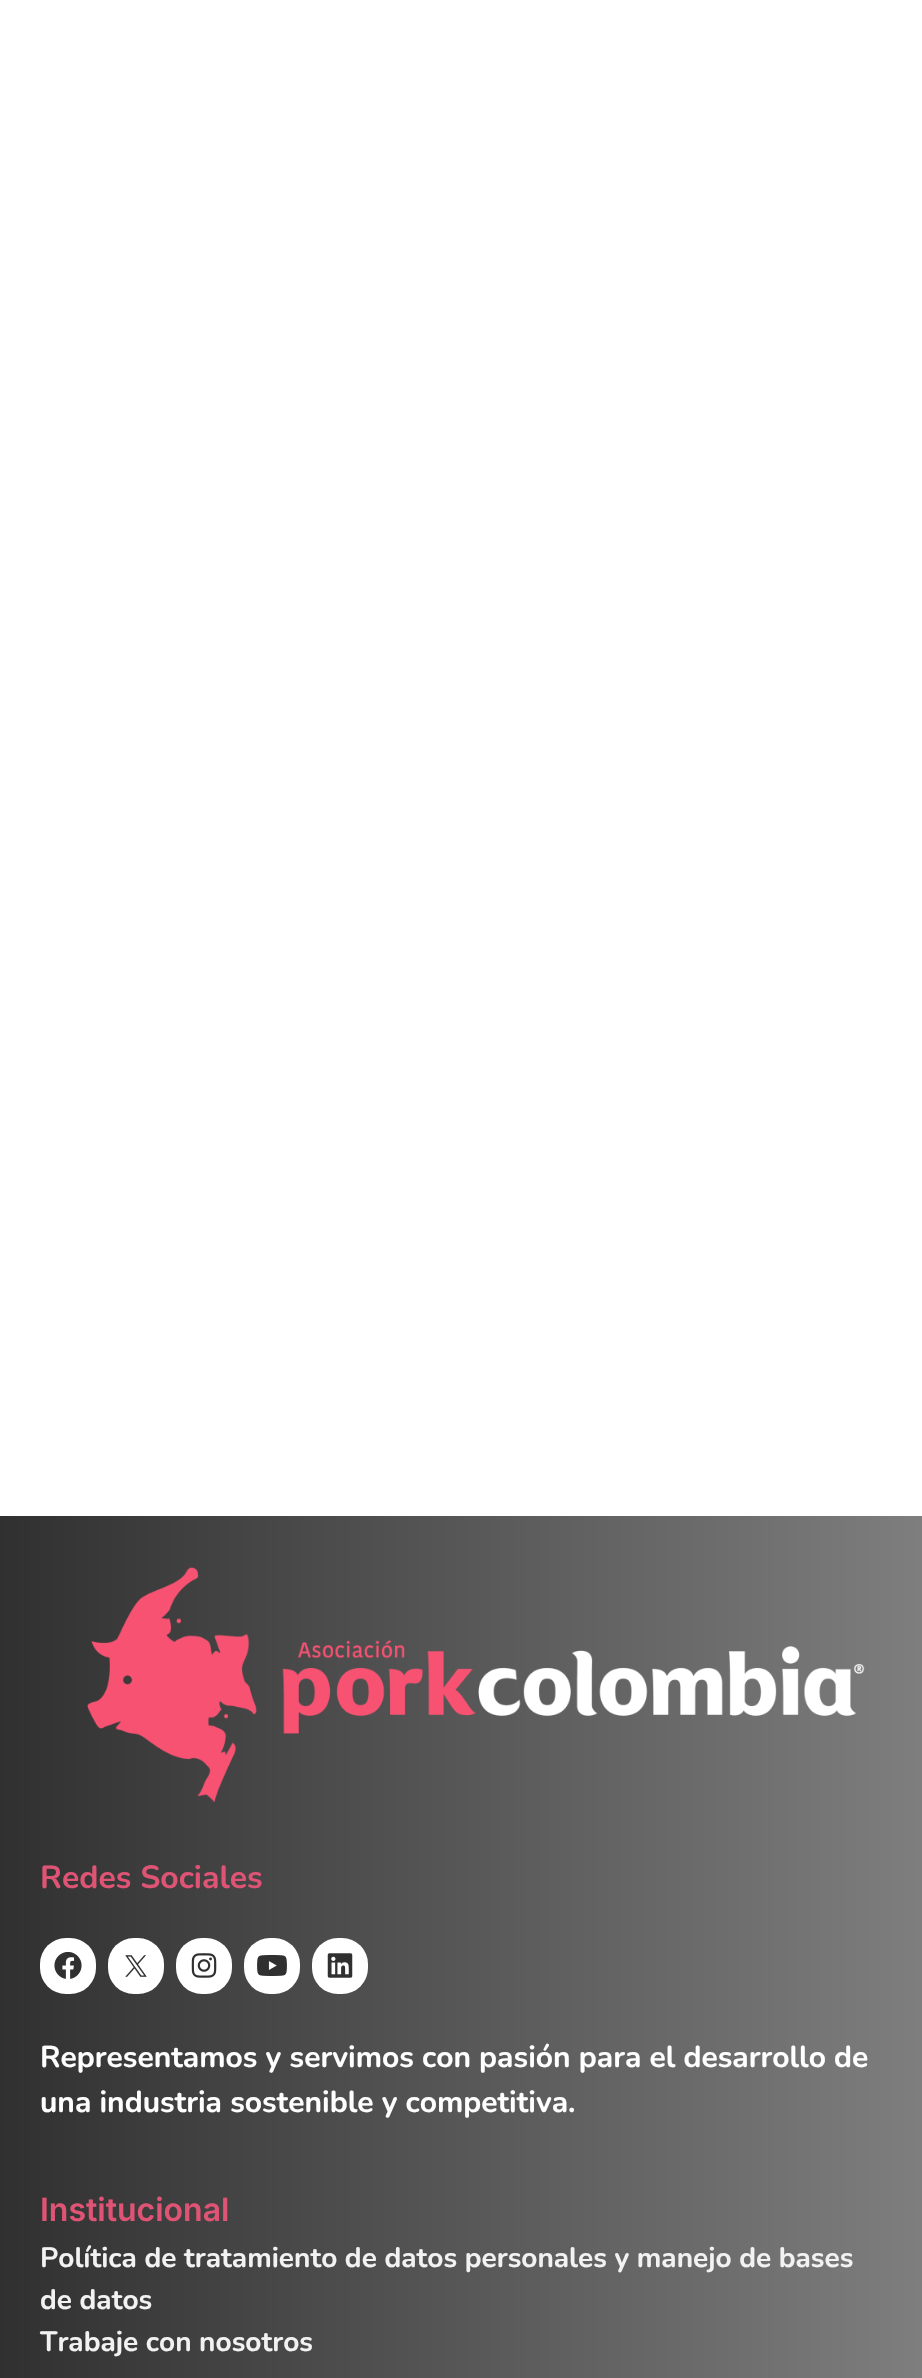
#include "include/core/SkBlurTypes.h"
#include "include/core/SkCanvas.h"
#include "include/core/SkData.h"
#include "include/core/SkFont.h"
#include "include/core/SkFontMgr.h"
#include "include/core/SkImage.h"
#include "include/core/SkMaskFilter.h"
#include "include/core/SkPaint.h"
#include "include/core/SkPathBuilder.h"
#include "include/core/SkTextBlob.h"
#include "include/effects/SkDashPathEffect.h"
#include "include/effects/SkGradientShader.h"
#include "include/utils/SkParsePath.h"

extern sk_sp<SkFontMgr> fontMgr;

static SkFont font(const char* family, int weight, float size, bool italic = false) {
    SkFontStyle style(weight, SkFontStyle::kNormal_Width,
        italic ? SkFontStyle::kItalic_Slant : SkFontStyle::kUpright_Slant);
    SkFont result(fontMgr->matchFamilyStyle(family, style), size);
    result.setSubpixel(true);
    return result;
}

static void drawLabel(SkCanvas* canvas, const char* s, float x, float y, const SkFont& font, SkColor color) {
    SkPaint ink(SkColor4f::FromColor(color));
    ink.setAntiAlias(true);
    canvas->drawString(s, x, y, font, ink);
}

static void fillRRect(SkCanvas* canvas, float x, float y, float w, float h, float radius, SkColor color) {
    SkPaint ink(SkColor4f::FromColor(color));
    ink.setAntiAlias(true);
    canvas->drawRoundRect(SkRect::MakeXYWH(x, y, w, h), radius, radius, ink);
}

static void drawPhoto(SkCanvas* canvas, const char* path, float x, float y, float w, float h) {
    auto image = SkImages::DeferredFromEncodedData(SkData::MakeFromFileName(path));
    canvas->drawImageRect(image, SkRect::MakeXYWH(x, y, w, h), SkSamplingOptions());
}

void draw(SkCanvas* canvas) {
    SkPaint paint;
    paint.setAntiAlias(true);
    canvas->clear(0xFFFFFFFF);
    {
        const SkColor colors[] = {0xFF303030, 0xFF7E7E7E};
        const float stops[] = {0, 1};
        const SkPoint ends[] = {{0, 2225}, {922, 2225}};
        paint.setShader(SkGradientShader::MakeLinear(ends, colors, stops, 2, SkTileMode::kClamp));
        paint.setAlpha(255);
    }
    canvas->drawRect(SkRect::MakeXYWH(0, 1516, 922, 862), paint);
    drawPhoto(canvas, "assets/img1.png", 87, 1567, 778, 235);
    SkFont font1 = font("Nunito", 700, 32);
    drawLabel(canvas, "Redes Sociales", 40, 1888, font1, 0xFFDF5374);
    fillRRect(canvas, 40, 1938, 56, 56, 26, 0xFFFFFFFF);
    drawPhoto(canvas, "assets/img2.png", 54, 1951, 28, 28);
    fillRRect(canvas, 108, 1938, 56, 56, 26, 0xFFFFFFFF);
    drawPhoto(canvas, "assets/img3.png", 125, 1955, 22, 22);
    fillRRect(canvas, 176, 1938, 56, 56, 26, 0xFFFFFFFF);
    drawPhoto(canvas, "assets/img4.png", 191, 1953, 26, 25);
    fillRRect(canvas, 244, 1938, 56, 56, 26, 0xFFFFFFFF);
    drawPhoto(canvas, "assets/img5.png", 257, 1955, 30, 21);
    fillRRect(canvas, 312, 1938, 56, 56, 26, 0xFFFFFFFF);
    drawPhoto(canvas, "assets/img6.png", 327, 1953, 26, 25);
    SkFont font2 = font("Nunito", 700, 30);
    drawLabel(canvas, "Representamos y servimos con pasión para el desarrollo de", 40, 2067, font2, 0xFFFFFFFF);
    drawLabel(canvas, "una industria sostenible y competitiva.", 40, 2112, font2, 0xFFFFFFFF);
    SkFont font3 = font("Inter", 600, 32);
    drawLabel(canvas, "Institucional", 40, 2221, font3, 0xFFDF5374);
    SkFont font4 = font("Nunito", 700, 28);
    drawLabel(canvas, "Política de tratamiento de datos personales y manejo de bases", 40, 2267, font4, 0xFFF2F2F2);
    drawLabel(canvas, "de datos", 40, 2309, font4, 0xFFF2F2F2);
    drawLabel(canvas, "Trabaje con nosotros", 40, 2351, font4, 0xFFF2F2F2);
}
